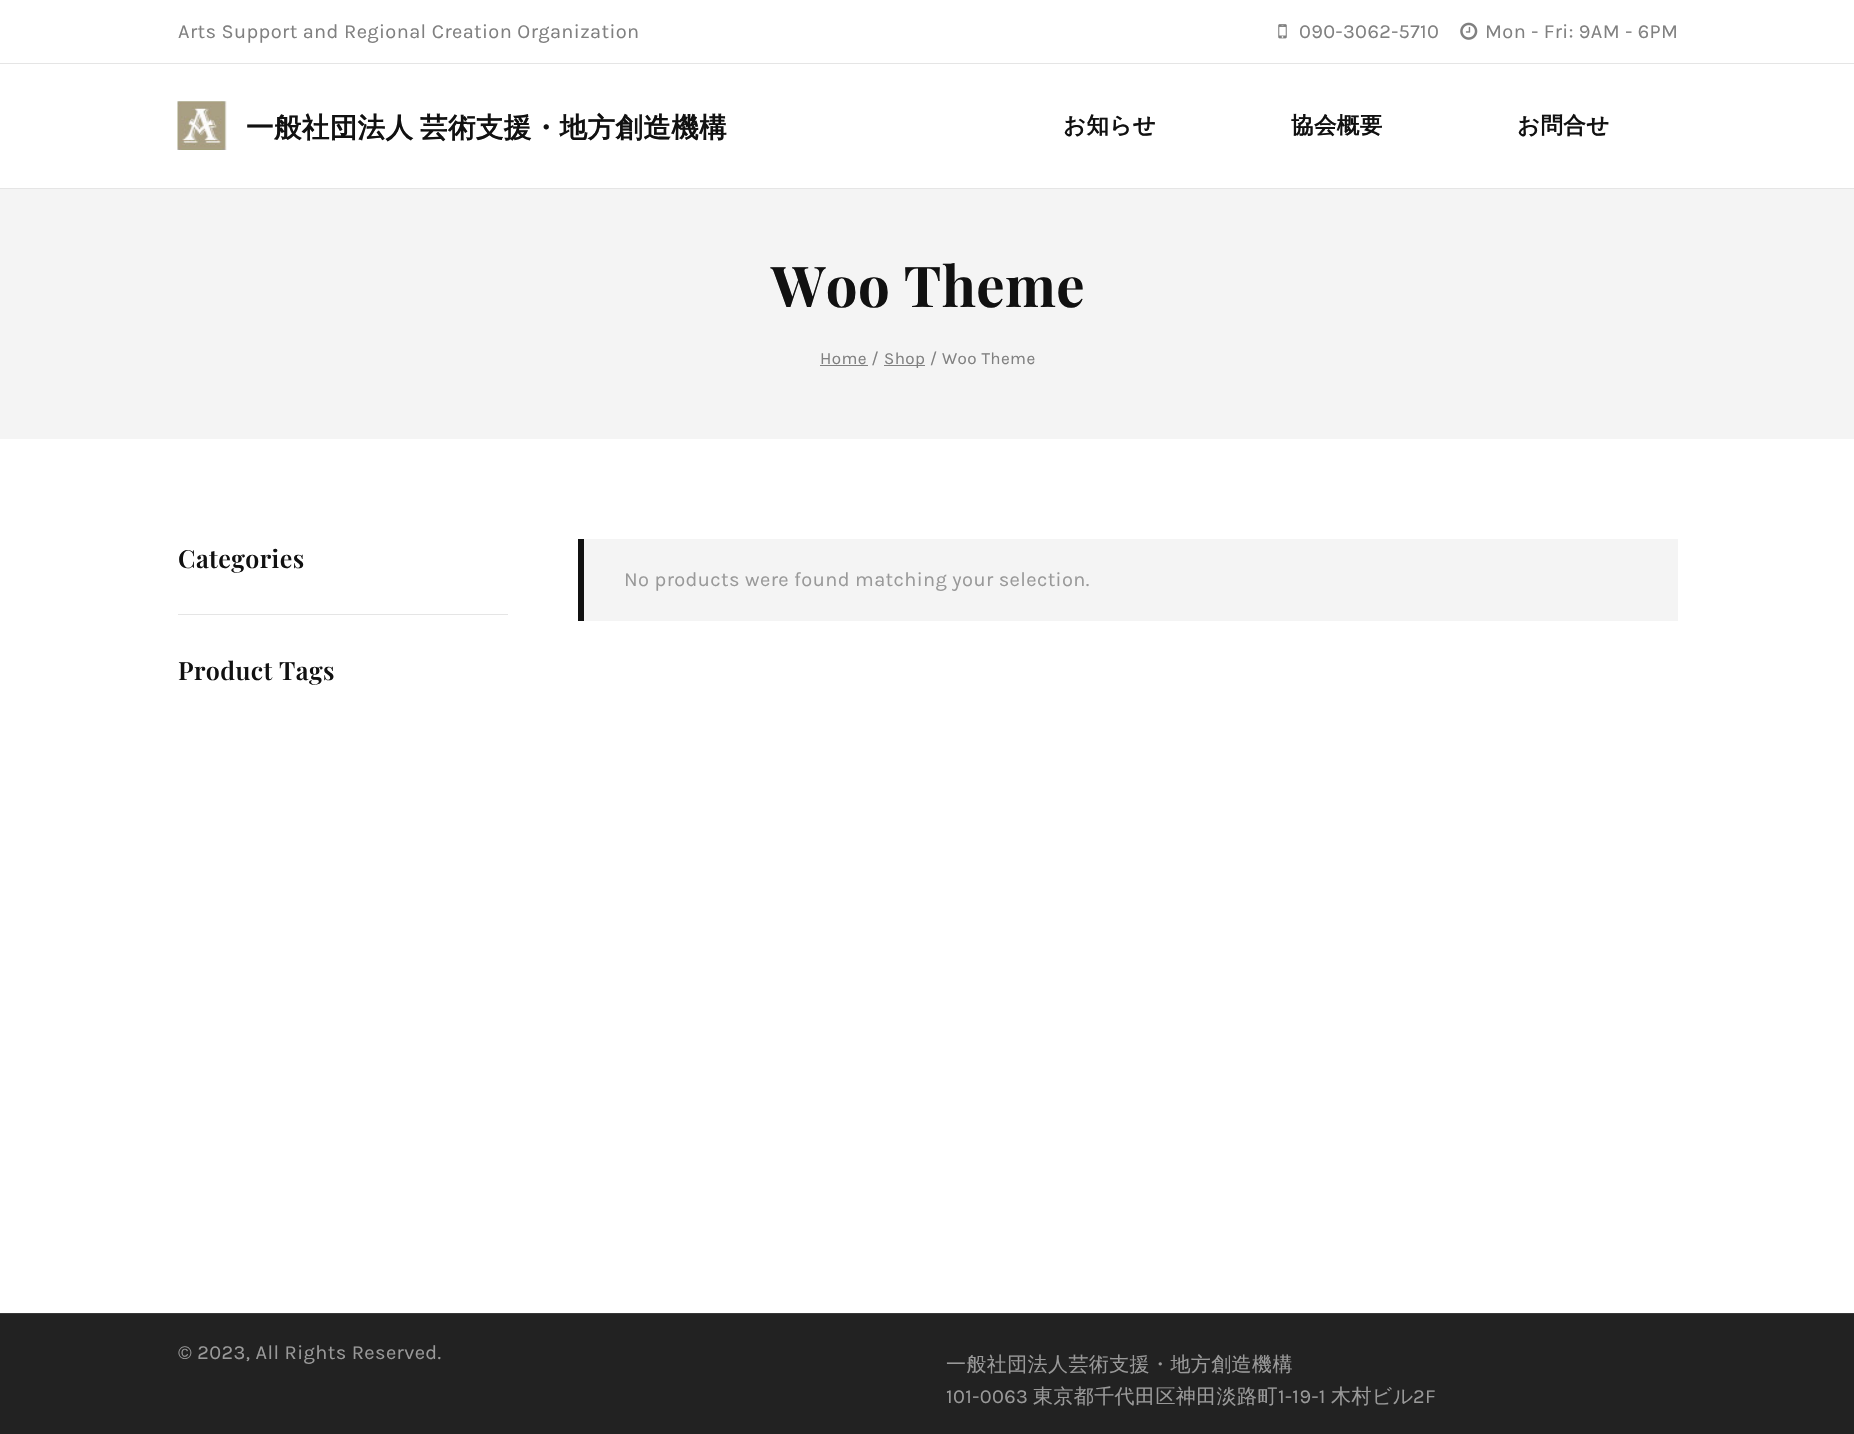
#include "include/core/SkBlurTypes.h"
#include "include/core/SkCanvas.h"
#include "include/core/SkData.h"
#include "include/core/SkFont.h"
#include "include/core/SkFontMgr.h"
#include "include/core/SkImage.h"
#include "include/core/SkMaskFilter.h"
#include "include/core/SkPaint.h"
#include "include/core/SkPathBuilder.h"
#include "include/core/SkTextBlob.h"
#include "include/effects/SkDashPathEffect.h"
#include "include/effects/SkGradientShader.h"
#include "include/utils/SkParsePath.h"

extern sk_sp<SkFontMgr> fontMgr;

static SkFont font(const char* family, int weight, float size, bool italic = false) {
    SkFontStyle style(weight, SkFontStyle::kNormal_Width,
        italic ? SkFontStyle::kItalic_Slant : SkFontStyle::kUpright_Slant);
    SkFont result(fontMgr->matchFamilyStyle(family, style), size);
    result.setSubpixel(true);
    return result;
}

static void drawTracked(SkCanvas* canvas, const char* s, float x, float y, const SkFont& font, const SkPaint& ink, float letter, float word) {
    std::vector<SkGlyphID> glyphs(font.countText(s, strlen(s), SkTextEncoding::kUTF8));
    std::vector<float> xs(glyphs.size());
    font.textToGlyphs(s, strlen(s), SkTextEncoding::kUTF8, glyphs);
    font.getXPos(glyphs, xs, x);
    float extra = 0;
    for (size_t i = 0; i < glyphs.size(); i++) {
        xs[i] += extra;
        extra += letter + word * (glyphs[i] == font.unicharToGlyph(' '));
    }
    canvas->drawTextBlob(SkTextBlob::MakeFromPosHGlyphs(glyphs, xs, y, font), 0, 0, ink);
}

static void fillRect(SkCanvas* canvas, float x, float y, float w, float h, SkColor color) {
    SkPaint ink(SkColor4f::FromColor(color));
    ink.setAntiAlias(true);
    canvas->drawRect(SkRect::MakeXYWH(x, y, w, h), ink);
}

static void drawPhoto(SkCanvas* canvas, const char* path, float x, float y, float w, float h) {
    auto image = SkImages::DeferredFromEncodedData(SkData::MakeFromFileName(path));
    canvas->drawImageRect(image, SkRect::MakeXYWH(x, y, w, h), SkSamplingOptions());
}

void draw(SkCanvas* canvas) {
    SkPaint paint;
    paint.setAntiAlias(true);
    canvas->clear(0xFFFFFFFF);
    SkFont font1 = font("Karla", 400, 20);
    paint.setColor(0xFF808080);
    drawTracked(canvas, "Arts Support and Regional Creation Organization", 178, 38, font1, paint, 0.4f, 0);
    drawPhoto(canvas, "assets/img1.png", 1278, 24, 9, 15);
    drawTracked(canvas, "090-3062-5710", 1299, 38, font1, paint, 0.4f, 0);
    drawPhoto(canvas, "assets/img2.png", 1460, 22, 18, 18);
    drawTracked(canvas, "Mon - Fri: 9AM - 6PM", 1485, 38, font1, paint, 0.4f, 0);
    fillRect(canvas, 0, 63, 1854, 1, 0xFFE5E5E5);
    fillRect(canvas, 0, 188, 1854, 1, 0xFFE5E5E5);
    drawPhoto(canvas, "assets/img3.png", 177, 101, 50, 49);
    SkFont font2 = font("WenQuanYi Zen Hei", 700, 27.5f);
    paint.setColor(0xFF111111);
    drawTracked(canvas, "一般社団法人 芸術支援・地方創造機構", 246, 137, font2, paint, 0.4f, -2);
    SkFont font3 = font("WenQuanYi Zen Hei", 700, 22.5f);
    drawTracked(canvas, "お知らせ", 1063, 133, font3, paint, 0.4f, 0);
    drawTracked(canvas, "協会概要", 1291, 133, font3, paint, 0.4f, 0);
    drawTracked(canvas, "お問合せ", 1517, 133, font3, paint, 0.4f, 0);
    fillRect(canvas, 0, 189, 1854, 250, 0xFFF4F4F4);
    SkFont font4 = font("Playfair Display", 700, 56.25f);
    drawTracked(canvas, "Woo Theme", 771, 307, font4, paint, 0.4f, 0);
    fillRect(canvas, 820, 365, 48, 1, 0xFF808080);
    SkFont font5 = font("Karla", 400, 17);
    paint.setColor(0xFF808080);
    drawTracked(canvas, "Home /", 820, 364, font5, paint, 0.4f, 0);
    fillRect(canvas, 884, 365, 41, 1, 0xFF808080);
    drawTracked(canvas, "Shop / Woo Theme", 884, 364, font5, paint, 0.4f, 0);
    fillRect(canvas, 178, 614, 330, 1, 0xFFE5E5E5);
    SkFont font6 = font("Playfair Display", 600, 25);
    paint.setColor(0xFF111111);
    drawTracked(canvas, "Categories", 178, 568, font6, paint, 0.4f, 0);
    drawTracked(canvas, "Product Tags", 178, 680, font6, paint, 0.4f, 0);
    fillRect(canvas, 584, 539, 1094, 82, 0xFFF4F4F4);
    fillRect(canvas, 578, 539, 6, 82, 0xFF111111);
    paint.setColor(0xFF999999);
    drawTracked(canvas, "No products were found matching your selection.", 624, 586, font1, paint, 0.4f, 0);
    fillRect(canvas, 0, 1314, 1854, 120, 0xFF222222);
    fillRect(canvas, 0, 1313, 1854, 1, 0xFF383838);
    drawTracked(canvas, "© 2023, All Rights Reserved.", 178, 1359, font1, paint, 0.4f, 0);
    SkFont font7 = font("WenQuanYi Zen Hei", 500, 20);
    drawTracked(canvas, "一般社団法人芸術支援・地方創造機構", 946, 1371, font7, paint, 0.4f, 0);
    drawTracked(canvas, "101-0063", 946, 1403, font1, paint, 0.4f, 0);
    drawTracked(canvas, "東京都千代田区神田淡路町", 1033, 1403, font7, paint, 0.4f, 0);
    drawTracked(canvas, "1-19-1", 1278, 1403, font1, paint, 0.4f, 0);
    drawTracked(canvas, "木村ビル", 1331, 1403, font7, paint, 0.4f, 0);
    drawTracked(canvas, "2F", 1413, 1403, font1, paint, 0.4f, 0);
}
